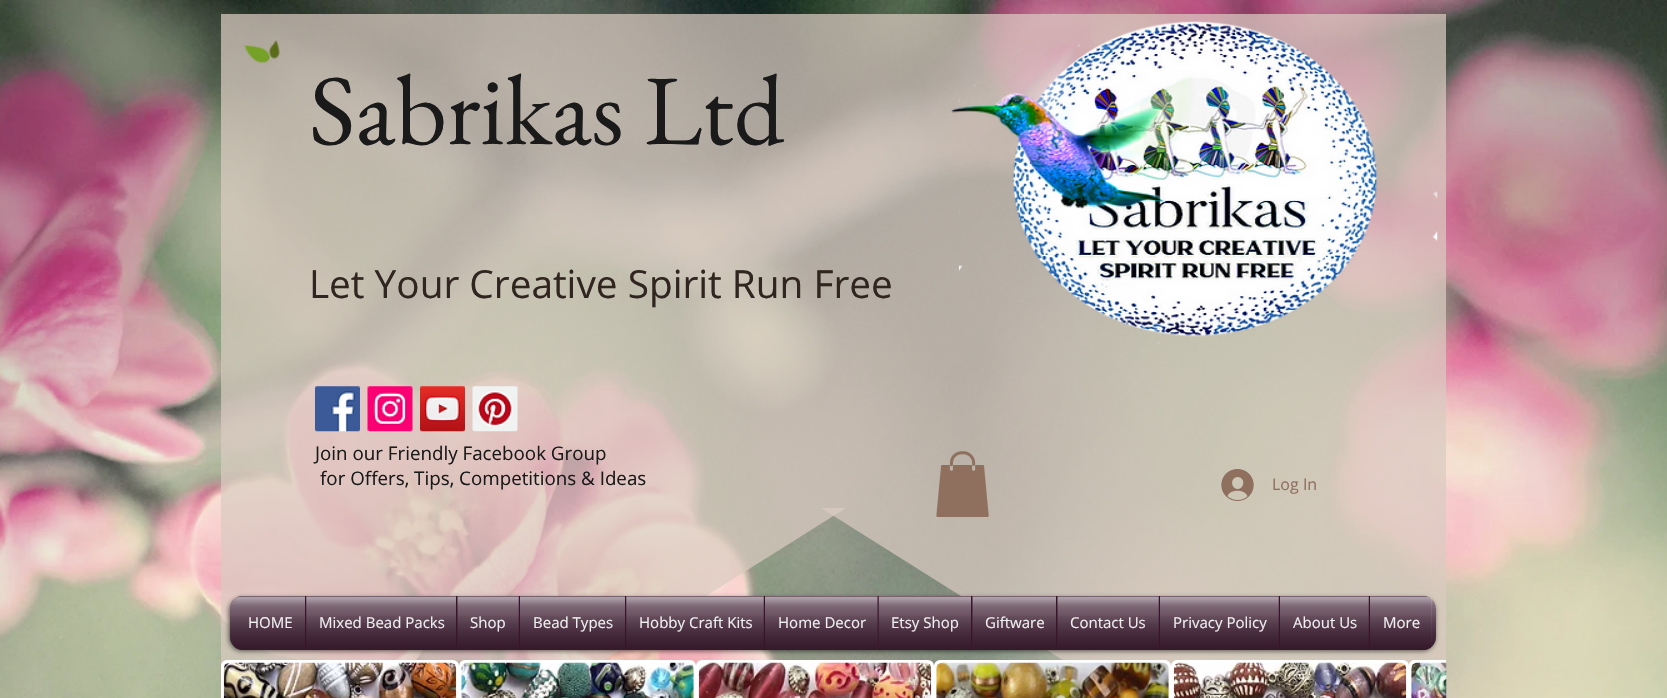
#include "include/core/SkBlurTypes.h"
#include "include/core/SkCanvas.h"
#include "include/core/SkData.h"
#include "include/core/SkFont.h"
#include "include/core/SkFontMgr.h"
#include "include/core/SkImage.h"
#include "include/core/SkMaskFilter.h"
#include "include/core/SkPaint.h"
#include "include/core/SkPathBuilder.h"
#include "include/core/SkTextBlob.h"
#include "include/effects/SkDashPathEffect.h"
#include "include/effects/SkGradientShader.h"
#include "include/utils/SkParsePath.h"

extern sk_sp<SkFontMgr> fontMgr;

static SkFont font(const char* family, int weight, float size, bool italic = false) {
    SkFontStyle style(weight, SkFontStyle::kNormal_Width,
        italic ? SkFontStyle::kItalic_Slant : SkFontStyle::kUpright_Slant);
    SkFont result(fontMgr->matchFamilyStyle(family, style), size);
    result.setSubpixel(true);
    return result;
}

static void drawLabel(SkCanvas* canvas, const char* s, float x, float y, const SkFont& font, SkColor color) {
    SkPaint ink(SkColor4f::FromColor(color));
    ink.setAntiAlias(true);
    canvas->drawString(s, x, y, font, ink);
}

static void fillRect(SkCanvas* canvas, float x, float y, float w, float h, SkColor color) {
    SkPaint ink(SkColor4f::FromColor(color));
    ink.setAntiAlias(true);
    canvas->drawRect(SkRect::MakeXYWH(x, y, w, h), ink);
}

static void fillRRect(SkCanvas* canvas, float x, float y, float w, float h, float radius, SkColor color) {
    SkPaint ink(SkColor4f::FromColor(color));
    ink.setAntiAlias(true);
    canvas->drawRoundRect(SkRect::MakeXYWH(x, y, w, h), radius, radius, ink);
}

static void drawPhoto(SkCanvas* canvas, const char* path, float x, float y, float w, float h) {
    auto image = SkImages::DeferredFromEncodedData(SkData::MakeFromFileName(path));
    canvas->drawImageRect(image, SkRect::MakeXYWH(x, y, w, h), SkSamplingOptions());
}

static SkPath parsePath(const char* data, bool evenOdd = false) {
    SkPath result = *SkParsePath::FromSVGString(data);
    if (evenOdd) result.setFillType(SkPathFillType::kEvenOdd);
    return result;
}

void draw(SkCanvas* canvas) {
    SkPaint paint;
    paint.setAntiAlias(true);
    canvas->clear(0xFFFFFFFF);
    drawPhoto(canvas, "assets/img1.png", 0, 0, 1667, 698);
    fillRect(canvas, 221, 14, 1225, 494, 0xB8DACAC1);
    drawPhoto(canvas, "assets/img2.png", 243, 40, 37, 24);
    drawPhoto(canvas, "assets/img3.png", 958, 14, 480, 330);
    SkFont font1 = font("EB Garamond", 400, 100);
    drawLabel(canvas, "Sabrikas Ltd", 309, 144, font1, 0xFF1A1A1A);
    drawPhoto(canvas, "assets/img4.png", 951, 45, 244, 164);
    SkFont font2 = font("Open Sans", 400, 38.75f);
    drawLabel(canvas, "Let Your Creative Spirit Run Free", 309, 298, font2, 0xFF30251F);
    drawPhoto(canvas, "assets/img5.png", 315, 386, 45, 46);
    drawPhoto(canvas, "assets/img6.png", 367, 386, 46, 46);
    drawPhoto(canvas, "assets/img7.png", 420, 386, 45, 46);
    drawPhoto(canvas, "assets/img8.png", 472, 386, 46, 46);
    SkFont font3 = font("Open Sans", 400, 18.75f);
    drawLabel(canvas, "Join our Friendly Facebook Group", 315, 460, font3, 0xFF1A1A1A);
    drawLabel(canvas, "for Offers, Tips, Competitions & Ideas", 320, 485, font3, 0xFF1A1A1A);
    paint.setColor(0xB8DACAC1);
    canvas->drawPath(parsePath("M221 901V508H846Z"), paint);
    canvas->drawPath(parsePath("M1446 508V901L821 508Z"), paint);
    drawPhoto(canvas, "assets/img9.png", 936, 451, 53, 66);
    drawPhoto(canvas, "assets/img10.png", 1221, 469, 33, 32);
    SkFont font4 = font("Open Sans", 400, 16);
    drawLabel(canvas, "Log In", 1272, 490, font4, 0xFF8F705E);
    paint.setColor(0x99000000);
    paint.setMaskFilter(SkMaskFilter::MakeBlur(kNormal_SkBlurStyle, 2.5f));
    canvas->drawRoundRect(SkRect::MakeXYWH(229, 598, 1206, 53), 13, 13, paint);
    paint.setMaskFilter(nullptr);
    fillRRect(canvas, 230, 596, 1206, 54, 13, 0xFF37162B);
    drawPhoto(canvas, "assets/img11.png", 230, 596, 1206, 54);
    drawPhoto(canvas, "assets/img12.png", 230, 616, 1206, 34);
    canvas->save();
    canvas->clipPath(parsePath("M243 596H1423C1430 596 1436 602 1436 609V637C1436 644 1430 650 1423 650H243C236 650 230 644 230 637V609C230 602 236 596 243 596Z"), true);
    fillRect(canvas, 235, 596, 70, 54, 0xFF37162B);
    canvas->restore();
    SkFont font5 = font("Open Sans", 400, 15);
    drawLabel(canvas, "HOME", 248, 628, font5, 0xFFFFFFFF);
    drawPhoto(canvas, "assets/img13.png", 235, 596, 70, 54);
    drawPhoto(canvas, "assets/img14.png", 235, 616, 70, 34);
    fillRect(canvas, 305, 596, 1064, 54, 0xFF37162B);
    drawLabel(canvas, "Mixed Bead Packs", 319, 628, font5, 0xFFFFFFFF);
    drawPhoto(canvas, "assets/img15.png", 306, 596, 150, 54);
    drawPhoto(canvas, "assets/img16.png", 306, 616, 150, 34);
    drawLabel(canvas, "Shop", 470, 628, font5, 0xFFFFFFFF);
    drawPhoto(canvas, "assets/img17.png", 457, 596, 62, 54);
    drawPhoto(canvas, "assets/img18.png", 458, 616, 61, 34);
    drawLabel(canvas, "Bead Types", 533, 628, font5, 0xFFFFFFFF);
    drawPhoto(canvas, "assets/img19.png", 520, 596, 105, 54);
    drawPhoto(canvas, "assets/img20.png", 520, 616, 105, 34);
    drawLabel(canvas, "Hobby Craft Kits", 639, 628, font5, 0xFFFFFFFF);
    drawPhoto(canvas, "assets/img21.png", 626, 596, 138, 54);
    drawPhoto(canvas, "assets/img22.png", 626, 616, 138, 34);
    drawLabel(canvas, "Home Decor", 778, 628, font5, 0xFFFFFFFF);
    drawPhoto(canvas, "assets/img23.png", 765, 596, 113, 54);
    drawPhoto(canvas, "assets/img24.png", 765, 616, 112, 34);
    drawLabel(canvas, "Etsy Shop", 891, 628, font5, 0xFFFFFFFF);
    drawPhoto(canvas, "assets/img25.png", 878, 596, 93, 54);
    drawPhoto(canvas, "assets/img26.png", 879, 616, 92, 34);
    drawLabel(canvas, "Giftware", 985, 628, font5, 0xFFFFFFFF);
    drawPhoto(canvas, "assets/img27.png", 972, 596, 84, 54);
    drawPhoto(canvas, "assets/img28.png", 973, 616, 83, 34);
    drawLabel(canvas, "Contact Us", 1070, 628, font5, 0xFFFFFFFF);
    drawPhoto(canvas, "assets/img29.png", 1057, 596, 102, 54);
    drawPhoto(canvas, "assets/img30.png", 1058, 616, 101, 34);
    drawLabel(canvas, "Privacy Policy", 1173, 628, font5, 0xFFFFFFFF);
    drawPhoto(canvas, "assets/img31.png", 1160, 596, 119, 54);
    drawPhoto(canvas, "assets/img32.png", 1160, 616, 119, 34);
    drawLabel(canvas, "About Us", 1293, 628, font5, 0xFFFFFFFF);
    drawPhoto(canvas, "assets/img33.png", 1280, 596, 89, 54);
    drawPhoto(canvas, "assets/img34.png", 1280, 616, 89, 34);
    canvas->save();
    canvas->clipPath(parsePath("M243 596H1423C1430 596 1436 602 1436 609V637C1436 644 1430 650 1423 650H243C236 650 230 644 230 637V609C230 602 236 596 243 596Z"), true);
    fillRect(canvas, 1369, 596, 62, 54, 0xFF37162B);
    canvas->restore();
    drawLabel(canvas, "More", 1383, 628, font5, 0xFFFFFFFF);
    drawPhoto(canvas, "assets/img35.png", 1370, 596, 62, 54);
    drawPhoto(canvas, "assets/img36.png", 1370, 616, 61, 34);
    paint.setColor(0xFFFFFFFF);
    canvas->drawRoundRect(SkRect::MakeXYWH(222.5f, 661.5f, 235, 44), 4.5f, 4.5f, paint);
    paint.setStroke(true);
    paint.setStrokeWidth(3);
    canvas->drawRoundRect(SkRect::MakeXYWH(222.5f, 661.5f, 235, 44), 4.5f, 4.5f, paint);
    drawPhoto(canvas, "assets/img37.png", 223, 662, 234, 36);
    paint.setStroke(false);
    canvas->drawRoundRect(SkRect::MakeXYWH(460.5f, 661.5f, 234, 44), 4.5f, 4.5f, paint);
    paint.setStroke(true);
    canvas->drawRoundRect(SkRect::MakeXYWH(460.5f, 661.5f, 234, 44), 4.5f, 4.5f, paint);
    drawPhoto(canvas, "assets/img38.png", 461, 662, 233, 36);
    paint.setStroke(false);
    canvas->drawRoundRect(SkRect::MakeXYWH(697.5f, 661.5f, 235, 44), 4.5f, 4.5f, paint);
    paint.setStroke(true);
    canvas->drawRoundRect(SkRect::MakeXYWH(697.5f, 661.5f, 235, 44), 4.5f, 4.5f, paint);
    drawPhoto(canvas, "assets/img39.png", 698, 662, 234, 36);
    paint.setStroke(false);
    canvas->drawRoundRect(SkRect::MakeXYWH(935.5f, 661.5f, 234, 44), 4.5f, 4.5f, paint);
    paint.setStroke(true);
    canvas->drawRoundRect(SkRect::MakeXYWH(935.5f, 661.5f, 234, 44), 4.5f, 4.5f, paint);
    drawPhoto(canvas, "assets/img40.png", 936, 662, 233, 36);
    paint.setStroke(false);
    canvas->drawRoundRect(SkRect::MakeXYWH(1172.5f, 661.5f, 235, 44), 4.5f, 4.5f, paint);
    paint.setStroke(true);
    canvas->drawRoundRect(SkRect::MakeXYWH(1172.5f, 661.5f, 235, 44), 4.5f, 4.5f, paint);
    drawPhoto(canvas, "assets/img41.png", 1173, 662, 234, 36);
    paint.setStroke(false);
    canvas->drawPath(parsePath("M1415 660H1446V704H1415C1411.5 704 1409 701.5 1409 698V666C1409 662.5 1411.5 660 1415 660Z"), paint);
    canvas->save();
    canvas->clipRect(SkRect::MakeXYWH(221, 660, 1225, 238));
    paint.setStroke(true);
    canvas->drawRoundRect(SkRect::MakeXYWH(1410.5f, 661.5f, 234, 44), 4.5f, 4.5f, paint);
    canvas->restore();
    drawPhoto(canvas, "assets/img42.png", 1411, 662, 36, 36);
}
